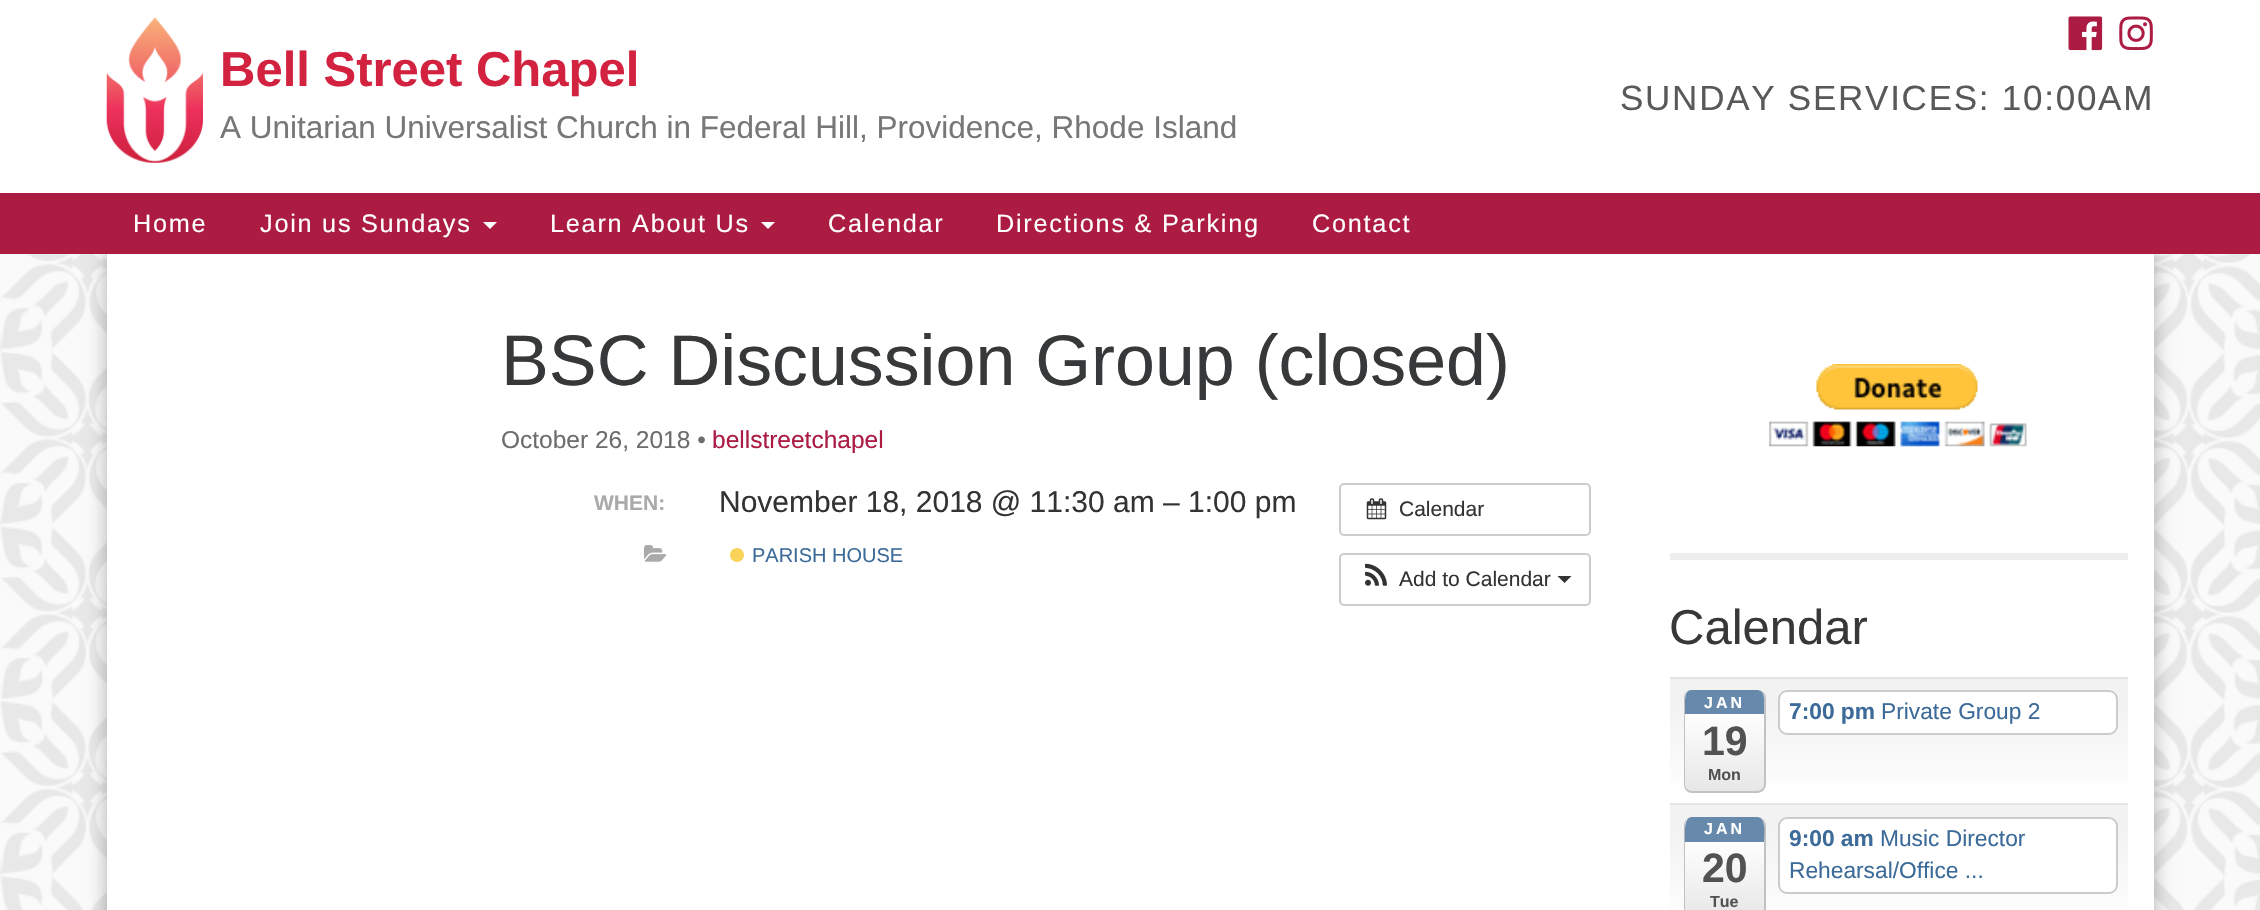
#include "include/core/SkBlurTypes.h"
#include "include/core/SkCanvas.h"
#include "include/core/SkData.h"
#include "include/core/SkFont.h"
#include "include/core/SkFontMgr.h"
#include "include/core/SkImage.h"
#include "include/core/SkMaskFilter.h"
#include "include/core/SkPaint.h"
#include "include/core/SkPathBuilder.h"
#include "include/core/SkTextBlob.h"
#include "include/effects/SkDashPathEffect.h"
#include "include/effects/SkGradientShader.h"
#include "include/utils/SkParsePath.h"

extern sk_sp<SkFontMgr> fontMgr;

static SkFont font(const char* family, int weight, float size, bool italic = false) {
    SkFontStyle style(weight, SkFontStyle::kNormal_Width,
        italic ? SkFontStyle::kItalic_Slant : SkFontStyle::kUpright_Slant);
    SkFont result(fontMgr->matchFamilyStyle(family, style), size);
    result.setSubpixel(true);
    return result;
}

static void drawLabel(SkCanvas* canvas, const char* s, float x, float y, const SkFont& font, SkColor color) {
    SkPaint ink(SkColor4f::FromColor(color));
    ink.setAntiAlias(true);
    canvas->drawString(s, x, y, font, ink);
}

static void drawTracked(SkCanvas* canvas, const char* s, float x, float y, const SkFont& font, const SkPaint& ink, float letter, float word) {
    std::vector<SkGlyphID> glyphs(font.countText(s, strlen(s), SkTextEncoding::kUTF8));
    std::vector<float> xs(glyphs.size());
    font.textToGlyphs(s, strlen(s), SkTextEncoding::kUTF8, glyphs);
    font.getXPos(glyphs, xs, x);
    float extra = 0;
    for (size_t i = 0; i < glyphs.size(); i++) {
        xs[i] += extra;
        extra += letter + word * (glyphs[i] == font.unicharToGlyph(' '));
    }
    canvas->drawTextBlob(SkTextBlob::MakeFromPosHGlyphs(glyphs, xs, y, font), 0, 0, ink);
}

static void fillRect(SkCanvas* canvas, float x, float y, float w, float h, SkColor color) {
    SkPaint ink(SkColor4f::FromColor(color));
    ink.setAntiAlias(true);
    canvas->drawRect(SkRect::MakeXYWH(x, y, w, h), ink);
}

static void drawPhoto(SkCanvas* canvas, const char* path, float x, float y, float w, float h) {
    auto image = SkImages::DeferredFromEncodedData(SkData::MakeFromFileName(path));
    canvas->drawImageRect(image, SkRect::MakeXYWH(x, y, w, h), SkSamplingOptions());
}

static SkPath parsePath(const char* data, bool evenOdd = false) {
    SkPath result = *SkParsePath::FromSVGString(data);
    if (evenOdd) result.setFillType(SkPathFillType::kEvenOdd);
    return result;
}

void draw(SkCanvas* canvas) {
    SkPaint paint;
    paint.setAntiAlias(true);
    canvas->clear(0xFFFFFFFF);
    drawPhoto(canvas, "assets/img1.png", 0, 254, 2260, 656);
    drawPhoto(canvas, "assets/img2.png", 106, 17, 97, 146);
    SkFont font1 = font("Liberation Sans", 700, 49);
    drawLabel(canvas, "Bell Street Chapel", 220, 86, font1, 0xFFD22240);
    SkFont font2 = font("Liberation Sans", 400, 31.5f);
    drawLabel(canvas, "A Unitarian Universalist Church in Federal Hill, Providence, Rhode Island", 220, 138, font2, 0xFF777777);
    drawPhoto(canvas, "assets/img3.png", 2068, 16, 35, 35);
    drawPhoto(canvas, "assets/img4.png", 2119, 16, 34, 35);
    SkFont font3 = font("Liberation Sans", 400, 35);
    paint.setColor(0xFF58595B);
    drawTracked(canvas, "SUNDAY SERVICES: 10:00AM", 1620, 110, font3, paint, 1.75f, 0);
    paint.setColor(0x4D000000);
    paint.setMaskFilter(SkMaskFilter::MakeBlur(kNormal_SkBlurStyle, 9));
    canvas->drawRect(SkRect::MakeXYWH(107, 254, 2047, 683), paint);
    paint.setMaskFilter(nullptr);
    fillRect(canvas, 0, 193, 2260, 61, 0xFFAB1B42);
    SkFont font4 = font("Liberation Sans", 400, 25.25f);
    paint.setColor(0xFFFFFFFF);
    drawTracked(canvas, "Home", 133, 232, font4, paint, 1.75f, 0);
    drawTracked(canvas, "Join us Sundays", 260, 232, font4, paint, 1.75f, 0);
    canvas->drawPath(parsePath("M483 222H497L490 229Z"), paint);
    drawTracked(canvas, "Learn About Us", 550, 232, font4, paint, 1.75f, 0);
    canvas->drawPath(parsePath("M761 222H775L768 229Z"), paint);
    drawTracked(canvas, "Calendar", 828, 232, font4, paint, 1.75f, 0);
    drawTracked(canvas, "Directions & Parking", 996, 232, font4, paint, 1.75f, 0);
    drawTracked(canvas, "Contact", 1312, 232, font4, paint, 1.75f, 0);
    fillRect(canvas, 107, 254, 2047, 656, 0xFFFFFFFF);
    SkFont font5 = font("Liberation Sans", 400, 71.75f);
    drawLabel(canvas, "BSC Discussion Group (closed)", 501, 385, font5, 0xFF373839);
    SkFont font6 = font("Liberation Sans", 400, 24.5f);
    drawLabel(canvas, "October 26, 2018 •", 501, 448, font6, 0xFF6C6D6F);
    drawLabel(canvas, "bellstreetchapel", 712, 448, font6, 0xFFAB1B42);
    SkFont font7 = font("Liberation Sans", 700, 21);
    drawLabel(canvas, "WHEN:", 594, 510, font7, 0xFFAAAAAA);
    SkFont font8 = font("Liberation Sans", 400, 30);
    drawLabel(canvas, "November 18, 2018 @ 11:30 am – 1:00 pm", 719, 512, font8, 0xFF333333);
    drawPhoto(canvas, "assets/img5.png", 644, 545, 23, 17);
    paint.setColor(0xFFF9D357);
    canvas->drawCircle(737, 555, 7, paint);
    SkFont font9 = font("Liberation Sans", 400, 20);
    drawLabel(canvas, "PARISH HOUSE", 752, 562, font9, 0xFF3D6B99);
    paint.setStroke(true);
    paint.setStrokeWidth(2);
    paint.setColor(0xFFCCCCCC);
    canvas->drawRoundRect(SkRect::MakeXYWH(1340, 484, 250, 51), 4, 4, paint);
    drawPhoto(canvas, "assets/img6.png", 1366, 498, 21, 22);
    SkFont font10 = font("Liberation Sans", 400, 21);
    drawLabel(canvas, "Calendar", 1399, 516, font10, 0xFF333333);
    canvas->drawRoundRect(SkRect::MakeXYWH(1340, 554, 250, 51), 4, 4, paint);
    drawPhoto(canvas, "assets/img7.png", 1365, 563, 22, 23);
    drawLabel(canvas, "Add to Calendar", 1399, 586, font10, 0xFF333333);
    paint.setStroke(false);
    paint.setColor(0xFF333333);
    canvas->drawPath(parsePath("M1557.5 576H1571.5L1564.5 583Z"), paint);
    drawPhoto(canvas, "assets/img8.png", 1769, 364, 258, 83);
    fillRect(canvas, 1670, 553, 458, 7, 0xFFEEEEEE);
    SkFont font11 = font("Liberation Sans", 400, 49);
    drawLabel(canvas, "Calendar", 1669, 644, font11, 0xFF373839);
    {
        const SkColor colors[] = {0xFFF2F2F2, 0xFFF2F2F2, 0xFFFFFFFF};
        const float stops[] = {0, 0.18f, 1};
        const SkPoint ends[] = {{1899, 679}, {1899, 803}};
        paint.setShader(SkGradientShader::MakeLinear(ends, colors, stops, 3, SkTileMode::kClamp));
        paint.setAlpha(255);
    }
    canvas->drawRect(SkRect::MakeXYWH(1670, 679, 458, 104), paint);
    fillRect(canvas, 1670, 677, 458, 2, 0xFFE5E5E5);
    canvas->save();
    canvas->clipPath(parsePath("M1693 690H1757C1762 690 1766 694 1766 699V784C1766 789 1762 793 1757 793H1693C1688 793 1684 789 1684 784V699C1684 694 1688 690 1693 690Z"), true);
    {
        const SkColor colors[] = {0xFFFFFFFF, 0xFFFFFFFF, 0xFFE7E7E7};
        const float stops[] = {0, 0.2f, 1};
        const SkPoint ends[] = {{1725, 690}, {1725, 791}};
        paint.setShader(SkGradientShader::MakeLinear(ends, colors, stops, 3, SkTileMode::kClamp));
        paint.setAlpha(255);
    }
    canvas->drawRect(SkRect::MakeXYWH(1685, 690, 79, 101), paint);
    canvas->restore();
    paint.setShader(nullptr);
    paint.setColor(0xFFC2C2C2);
    canvas->drawPath(parsePath("M1692 690H1757C1762 690 1766 693 1766 698V784C1766 789 1762 793 1757 793H1692C1687 793 1684 789 1684 784V698C1684 693 1687 690 1692 690ZM1692 690H1757C1761 690 1764 693 1764 698V784C1764 788 1761 791 1757 791H1692C1688 791 1685 788 1685 784V698C1685 693 1688 690 1692 690Z", true), paint);
    paint.setColor(0xFF6689AC);
    canvas->drawPath(parsePath("M1692 690H1758C1765 691 1764 699 1764 704V714H1685V704C1685 698 1685 690 1692 690Z"), paint);
    SkFont font12 = font("Liberation Sans", 700, 16);
    paint.setColor(0xFFFFFFFF);
    drawTracked(canvas, "JAN", 1704, 708, font12, paint, 3, 0);
    SkFont font13 = font("Liberation Sans", 700, 41);
    drawLabel(canvas, "19", 1702, 755, font13, 0xFF525252);
    drawLabel(canvas, "Mon", 1708, 780, font12, 0xFF525252);
    canvas->drawRoundRect(SkRect::MakeXYWH(1779, 691, 338, 43), 8, 8, paint);
    paint.setStroke(true);
    paint.setColor(0xFFCCCCCC);
    canvas->drawRoundRect(SkRect::MakeXYWH(1779, 691, 338, 43), 8, 8, paint);
    SkFont font14 = font("Liberation Sans", 700, 22.75f);
    drawLabel(canvas, "7:00 pm", 1789, 719, font14, 0xFF3D6B99);
    SkFont font15 = font("Liberation Sans", 400, 22.75f);
    drawLabel(canvas, "Private Group 2", 1881, 719, font15, 0xFF3D6B99);
    paint.setStroke(false);
    {
        const SkColor colors[] = {0xFFF2F2F2, 0xFFF2F2F2, 0xFFFFFFFF};
        const float stops[] = {0, 0.18f, 1};
        const SkPoint ends[] = {{1899, 805}, {1899, 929}};
        paint.setShader(SkGradientShader::MakeLinear(ends, colors, stops, 3, SkTileMode::kClamp));
        paint.setAlpha(255);
    }
    canvas->drawRect(SkRect::MakeXYWH(1670, 805, 458, 104), paint);
    fillRect(canvas, 1670, 803, 458, 2, 0xFFE5E5E5);
    canvas->save();
    canvas->clipPath(parsePath("M1693 817H1757C1762 817 1766 821 1766 826V910C1766 915 1762 919 1757 919H1693C1688 919 1684 915 1684 910V826C1684 821 1688 817 1693 817Z"), true);
    {
        const SkColor colors[] = {0xFFFFFFFF, 0xFFFFFFFF, 0xFFE7E7E7};
        const float stops[] = {0, 0.21f, 1};
        const SkPoint ends[] = {{1725, 817}, {1725, 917}};
        paint.setShader(SkGradientShader::MakeLinear(ends, colors, stops, 3, SkTileMode::kClamp));
        paint.setAlpha(255);
    }
    canvas->drawRect(SkRect::MakeXYWH(1685, 817, 79, 93), paint);
    canvas->restore();
    paint.setShader(nullptr);
    paint.setColor(0xFFC2C2C2);
    canvas->drawPath(parsePath("M1692 817H1757C1762 817 1766 821 1766 826V910C1766 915 1762 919 1757 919H1692C1687 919 1684 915 1684 910V826C1684 821 1687 817 1692 817ZM1692 817H1757C1761 817 1764 821 1764 826V910C1764 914 1761 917 1757 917H1692C1688 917 1685 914 1685 910V826C1685 821 1688 817 1692 817Z", true), paint);
    paint.setColor(0xFF6689AC);
    canvas->drawPath(parsePath("M1692 817C1683 817 1685 836 1685 842H1764C1764 836 1767 817 1757 817Z"), paint);
    paint.setColor(0xFFFFFFFF);
    drawTracked(canvas, "JAN", 1704, 834, font12, paint, 3, 0);
    drawLabel(canvas, "20", 1702, 882, font13, 0xFF525252);
    drawLabel(canvas, "Tue", 1710, 907, font12, 0xFF525252);
    canvas->drawRoundRect(SkRect::MakeXYWH(1779, 818, 338, 75), 8, 8, paint);
    paint.setStroke(true);
    paint.setColor(0xFFCCCCCC);
    canvas->drawRoundRect(SkRect::MakeXYWH(1779, 818, 338, 75), 8, 8, paint);
    drawLabel(canvas, "9:00 am", 1789, 846, font14, 0xFF3D6B99);
    drawLabel(canvas, "Music Director", 1880, 846, font15, 0xFF3D6B99);
    drawLabel(canvas, "Rehearsal/Office ...", 1789, 878, font15, 0xFF3D6B99);
}
